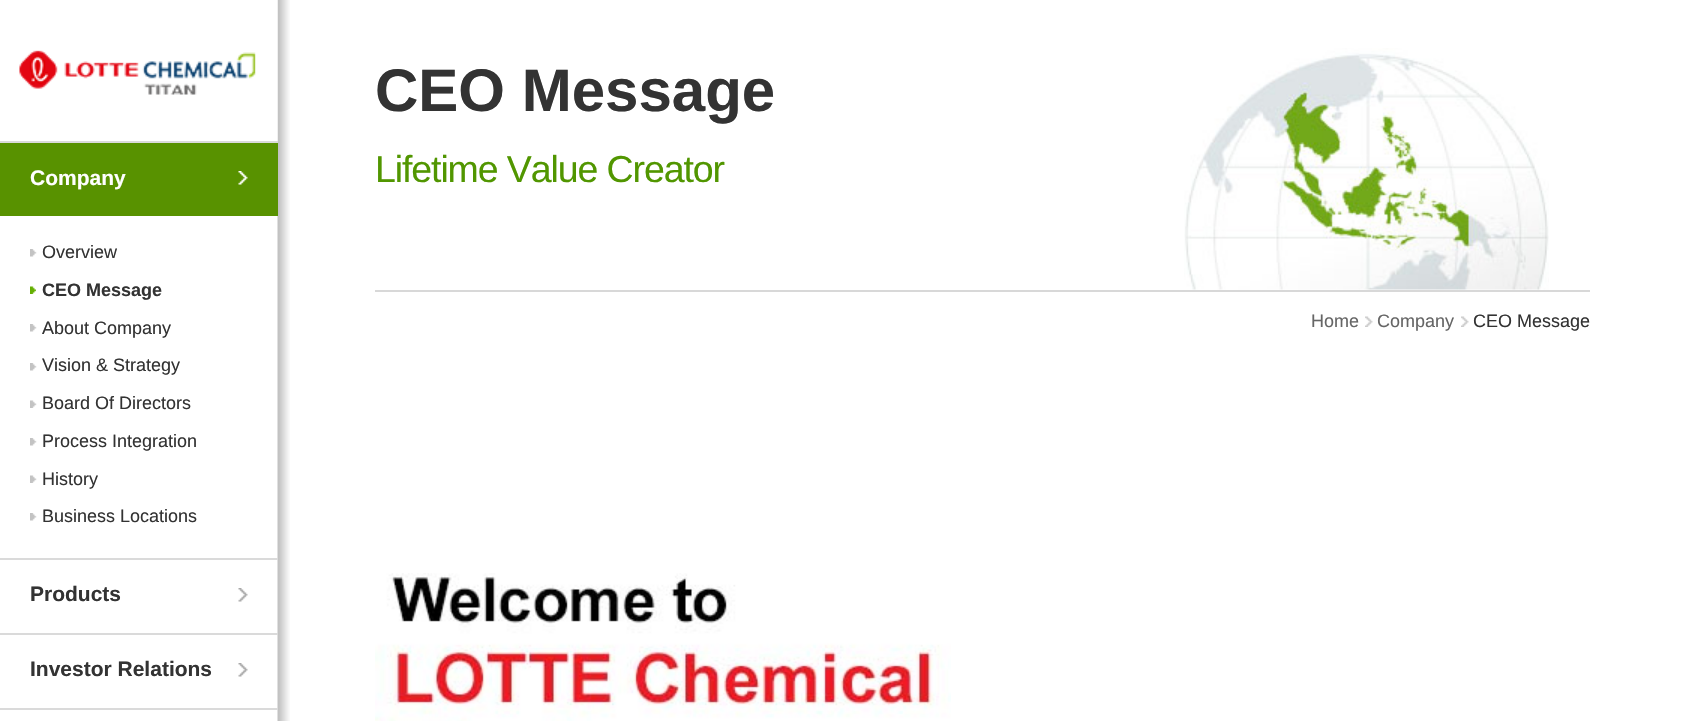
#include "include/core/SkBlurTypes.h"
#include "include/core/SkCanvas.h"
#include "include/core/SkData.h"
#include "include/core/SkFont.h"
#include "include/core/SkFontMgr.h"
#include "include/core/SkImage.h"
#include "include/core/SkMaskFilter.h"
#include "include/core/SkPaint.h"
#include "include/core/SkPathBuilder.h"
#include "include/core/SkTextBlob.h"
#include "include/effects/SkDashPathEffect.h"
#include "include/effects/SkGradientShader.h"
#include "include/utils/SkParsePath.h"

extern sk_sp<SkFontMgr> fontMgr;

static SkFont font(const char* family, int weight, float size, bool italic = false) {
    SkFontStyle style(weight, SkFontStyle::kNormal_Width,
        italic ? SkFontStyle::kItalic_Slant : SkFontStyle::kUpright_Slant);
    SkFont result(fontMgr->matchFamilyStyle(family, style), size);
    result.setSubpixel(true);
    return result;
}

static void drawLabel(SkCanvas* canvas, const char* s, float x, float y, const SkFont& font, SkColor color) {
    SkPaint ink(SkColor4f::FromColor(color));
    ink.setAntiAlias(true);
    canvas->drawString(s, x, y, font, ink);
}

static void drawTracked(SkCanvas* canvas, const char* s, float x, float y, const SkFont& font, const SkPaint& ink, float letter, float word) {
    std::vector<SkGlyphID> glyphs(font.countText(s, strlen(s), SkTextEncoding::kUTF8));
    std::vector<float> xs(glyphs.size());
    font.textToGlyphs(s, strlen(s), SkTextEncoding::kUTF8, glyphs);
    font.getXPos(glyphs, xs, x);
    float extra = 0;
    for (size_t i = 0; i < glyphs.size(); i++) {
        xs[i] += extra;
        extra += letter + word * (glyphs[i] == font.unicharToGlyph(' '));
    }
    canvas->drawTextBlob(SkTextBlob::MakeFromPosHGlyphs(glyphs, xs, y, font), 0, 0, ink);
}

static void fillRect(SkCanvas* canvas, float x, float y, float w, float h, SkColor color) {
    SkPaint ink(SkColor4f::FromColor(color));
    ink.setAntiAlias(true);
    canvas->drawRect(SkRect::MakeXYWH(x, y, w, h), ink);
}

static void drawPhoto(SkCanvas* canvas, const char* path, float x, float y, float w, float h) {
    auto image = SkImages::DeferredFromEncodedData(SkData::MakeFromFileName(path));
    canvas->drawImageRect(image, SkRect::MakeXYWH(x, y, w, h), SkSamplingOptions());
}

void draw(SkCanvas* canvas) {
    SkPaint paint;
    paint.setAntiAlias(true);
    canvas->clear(0xFFFFFFFF);
    drawPhoto(canvas, "assets/img1.png", 277, 0, 13, 721);
    drawPhoto(canvas, "assets/img2.png", 19, 0, 259, 141);
    drawPhoto(canvas, "assets/img3.png", 1184, 48, 365, 242);
    fillRect(canvas, 375, 290, 1215, 2, 0xFFD8D8D8);
    SkFont font1 = font("Liberation Sans", 700, 60);
    drawLabel(canvas, "CEO Message", 375, 111, font1, 0xFF333333);
    SkFont font2 = font("Liberation Sans", 400, 37.5f);
    paint.setColor(0xFF519600);
    drawTracked(canvas, "Lifetime Value Creator", 375, 182, font2, paint, -1.1f, 0);
    drawPhoto(canvas, "assets/img4.png", 1365, 316, 8, 11);
    SkFont font3 = font("Liberation Sans", 400, 18);
    drawLabel(canvas, "Home", 1311, 327, font3, 0xFF666666);
    drawPhoto(canvas, "assets/img5.png", 1461, 316, 8, 11);
    drawLabel(canvas, "Company", 1377, 327, font3, 0xFF666666);
    drawLabel(canvas, "CEO Message", 1473, 327, font3, 0xFF333333);
    drawPhoto(canvas, "assets/img6.png", 375, 573, 576, 148);
    fillRect(canvas, 0, 141, 278, 2, 0xFFDADADA);
    fillRect(canvas, 0, 143, 278, 73, 0xFF589200);
    drawPhoto(canvas, "assets/img7.png", 238, 171, 10, 14);
    SkFont font4 = font("Liberation Sans", 700, 21);
    drawLabel(canvas, "Company", 30, 185, font4, 0xFFFFFFFF);
    drawPhoto(canvas, "assets/img8.png", 30, 249, 7, 8);
    drawLabel(canvas, "Overview", 42, 258, font3, 0xFF333333);
    drawPhoto(canvas, "assets/img9.png", 30, 286, 6, 8);
    SkFont font5 = font("Liberation Sans", 700, 18);
    drawLabel(canvas, "CEO Message", 42, 296, font5, 0xFF333333);
    drawPhoto(canvas, "assets/img8.png", 30, 324, 7, 8);
    drawLabel(canvas, "About Company", 42, 334, font3, 0xFF333333);
    drawPhoto(canvas, "assets/img8.png", 30, 363, 7, 8);
    drawLabel(canvas, "Vision & Strategy", 42, 371, font3, 0xFF333333);
    drawPhoto(canvas, "assets/img10.png", 30, 400, 7, 8);
    drawLabel(canvas, "Board Of Directors", 42, 409, font3, 0xFF333333);
    drawPhoto(canvas, "assets/img8.png", 30, 438, 7, 8);
    drawLabel(canvas, "Process Integration", 42, 447, font3, 0xFF333333);
    drawPhoto(canvas, "assets/img10.png", 30, 475, 7, 8);
    drawLabel(canvas, "History", 42, 485, font3, 0xFF333333);
    drawPhoto(canvas, "assets/img8.png", 30, 513, 7, 8);
    drawLabel(canvas, "Business Locations", 42, 522, font3, 0xFF333333);
    fillRect(canvas, 0, 558, 278, 2, 0xFFDADADA);
    drawPhoto(canvas, "assets/img11.png", 238, 588, 10, 14);
    drawLabel(canvas, "Products", 30, 601, font4, 0xFF333333);
    fillRect(canvas, 0, 633, 278, 2, 0xFFDADADA);
    drawPhoto(canvas, "assets/img11.png", 238, 663, 10, 14);
    drawLabel(canvas, "Investor Relations", 30, 676, font4, 0xFF333333);
    fillRect(canvas, 0, 708, 278, 2, 0xFFDADADA);
}
